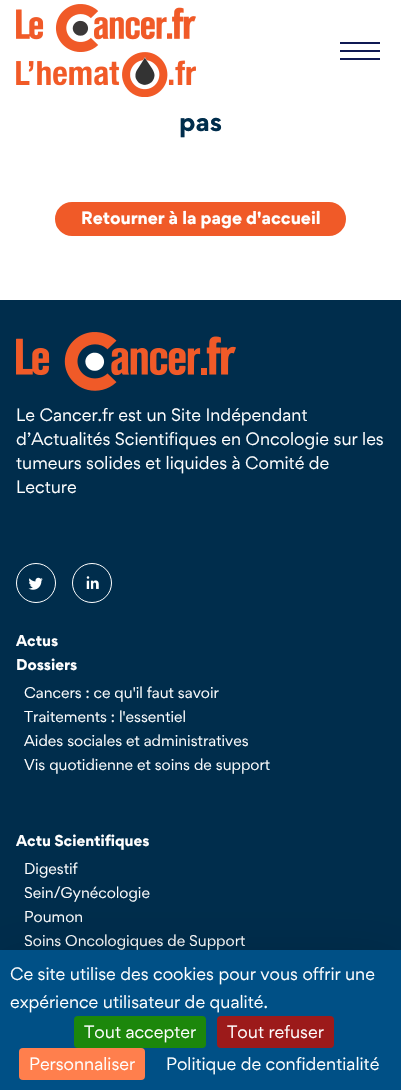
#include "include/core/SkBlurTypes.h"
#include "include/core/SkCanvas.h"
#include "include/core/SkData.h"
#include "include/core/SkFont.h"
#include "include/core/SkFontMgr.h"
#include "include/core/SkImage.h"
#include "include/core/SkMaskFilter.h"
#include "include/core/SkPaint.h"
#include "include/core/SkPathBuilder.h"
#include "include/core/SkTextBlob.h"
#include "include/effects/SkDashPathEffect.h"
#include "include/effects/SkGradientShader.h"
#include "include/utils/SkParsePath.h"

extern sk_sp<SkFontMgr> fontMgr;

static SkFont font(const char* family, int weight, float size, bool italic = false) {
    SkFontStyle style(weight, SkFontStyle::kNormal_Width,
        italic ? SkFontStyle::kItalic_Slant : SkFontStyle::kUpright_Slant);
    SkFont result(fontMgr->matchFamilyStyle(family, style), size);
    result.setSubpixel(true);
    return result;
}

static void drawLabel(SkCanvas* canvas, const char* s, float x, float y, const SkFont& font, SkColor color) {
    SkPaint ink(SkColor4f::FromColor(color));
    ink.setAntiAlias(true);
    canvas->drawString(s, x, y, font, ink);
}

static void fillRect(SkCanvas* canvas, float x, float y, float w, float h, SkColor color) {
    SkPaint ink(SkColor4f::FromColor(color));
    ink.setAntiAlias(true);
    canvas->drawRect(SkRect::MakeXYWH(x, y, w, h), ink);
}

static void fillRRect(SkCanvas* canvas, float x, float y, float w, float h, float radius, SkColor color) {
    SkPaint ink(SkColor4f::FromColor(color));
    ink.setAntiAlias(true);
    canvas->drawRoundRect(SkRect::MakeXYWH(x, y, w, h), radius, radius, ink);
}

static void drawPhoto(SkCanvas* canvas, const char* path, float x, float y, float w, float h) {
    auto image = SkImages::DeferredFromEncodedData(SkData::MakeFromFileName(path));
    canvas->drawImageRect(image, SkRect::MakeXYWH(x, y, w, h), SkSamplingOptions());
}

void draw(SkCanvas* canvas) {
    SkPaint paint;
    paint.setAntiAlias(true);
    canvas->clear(0xFFFFFFFF);
    drawPhoto(canvas, "assets/img1.png", 16, 4, 180, 48);
    drawPhoto(canvas, "assets/img2.png", 16, 52, 180, 45);
    fillRect(canvas, 340, 42, 40, 2, 0xFF0F1953);
    fillRect(canvas, 340, 50, 40, 2, 0xFF0F1953);
    fillRect(canvas, 340, 58, 40, 2, 0xFF0F1953);
    SkFont font1 = font("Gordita", 700, 24);
    drawLabel(canvas, "pas", 179, 131, font1, 0xFF002D4C);
    paint.setColor(0xFFF05A28);
    canvas->drawRoundRect(SkRect::MakeXYWH(56, 203, 289, 32), 16, 16, paint);
    paint.setStroke(true);
    paint.setStrokeWidth(2);
    canvas->drawRoundRect(SkRect::MakeXYWH(56, 203, 289, 32), 16, 16, paint);
    SkFont font2 = font("Gordita", 700, 16);
    drawLabel(canvas, "Retourner à la page d'accueil", 81, 224, font2, 0xFFFFFFFF);
    fillRect(canvas, 0, 300, 401, 650, 0xFF002D4C);
    drawPhoto(canvas, "assets/img3.png", 16, 332, 220, 59);
    SkFont font3 = font("Gordita", 400, 16);
    drawLabel(canvas, "Le Cancer.fr est un Site Indépendant", 16, 421, font3, 0xFFFFFFFF);
    drawLabel(canvas, "d’Actualités Scientifiques en Oncologie sur les", 16, 445, font3, 0xFFFFFFFF);
    drawLabel(canvas, "tumeurs solides et liquides à Comité de", 16, 469, font3, 0xFFFFFFFF);
    drawLabel(canvas, "Lecture", 16, 493, font3, 0xFFFFFFFF);
    paint.setStrokeWidth(1);
    paint.setColor(0xFFFFFFFF);
    canvas->drawCircle(36, 583, 19.5f, paint);
    drawPhoto(canvas, "assets/img4.png", 28, 577, 15, 13);
    canvas->drawCircle(92, 583, 19.5f, paint);
    drawPhoto(canvas, "assets/img5.png", 86, 576, 13, 13);
    SkFont font4 = font("Gordita", 700, 14);
    drawLabel(canvas, "Actus", 16, 646, font4, 0xFFFFFFFF);
    drawLabel(canvas, "Dossiers", 16, 670, font4, 0xFFFFFFFF);
    SkFont font5 = font("Gordita", 400, 14);
    drawLabel(canvas, "Cancers : ce qu'il faut savoir", 24, 698, font5, 0xFFFFFFFF);
    drawLabel(canvas, "Traitements : l'essentiel", 24, 722, font5, 0xFFFFFFFF);
    drawLabel(canvas, "Aides sociales et administratives", 24, 746, font5, 0xFFFFFFFF);
    drawLabel(canvas, "Vis quotidienne et soins de support", 24, 770, font5, 0xFFFFFFFF);
    drawLabel(canvas, "Actu Scientifiques", 16, 846, font4, 0xFFFFFFFF);
    drawLabel(canvas, "Digestif", 24, 874, font5, 0xFFFFFFFF);
    drawLabel(canvas, "Sein/Gynécologie", 24, 898, font5, 0xFFFFFFFF);
    drawLabel(canvas, "Poumon", 24, 922, font5, 0xFFFFFFFF);
    drawLabel(canvas, "Soins Oncologiques de Support", 24, 946, font5, 0xFFFFFFFF);
    paint.setStroke(false);
    paint.setColor(0x40000000);
    paint.setMaskFilter(SkMaskFilter::MakeBlur(kNormal_SkBlurStyle, 30));
    canvas->drawRect(SkRect::MakeXYWH(0, 970, 401, 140), paint);
    paint.setMaskFilter(nullptr);
    fillRect(canvas, 0, 950, 401, 140, 0xFF005086);
    drawLabel(canvas, "Ce site utilise des cookies pour vous offrir une", 10, 980, font3, 0xFFFFFFFF);
    drawLabel(canvas, "expérience utilisateur de qualité.", 10, 1008, font3, 0xFFFFFFFF);
    fillRRect(canvas, 74, 1016, 132, 32, 4, 0xFF1C870B);
    drawLabel(canvas, "Tout accepter", 84, 1038, font3, 0xFFFFFFFF);
    fillRRect(canvas, 217, 1016, 117, 32, 4, 0xFF9C1A1A);
    drawLabel(canvas, "Tout refuser", 227, 1038, font3, 0xFFFFFFFF);
    fillRRect(canvas, 19, 1048, 126, 32, 4, 0xFFFF7F4D);
    drawLabel(canvas, "Personnaliser", 29, 1070, font3, 0xFFFFFFFF);
    drawLabel(canvas, "Politique de confidentialité", 166, 1070, font3, 0xFFFFFFFF);
}
